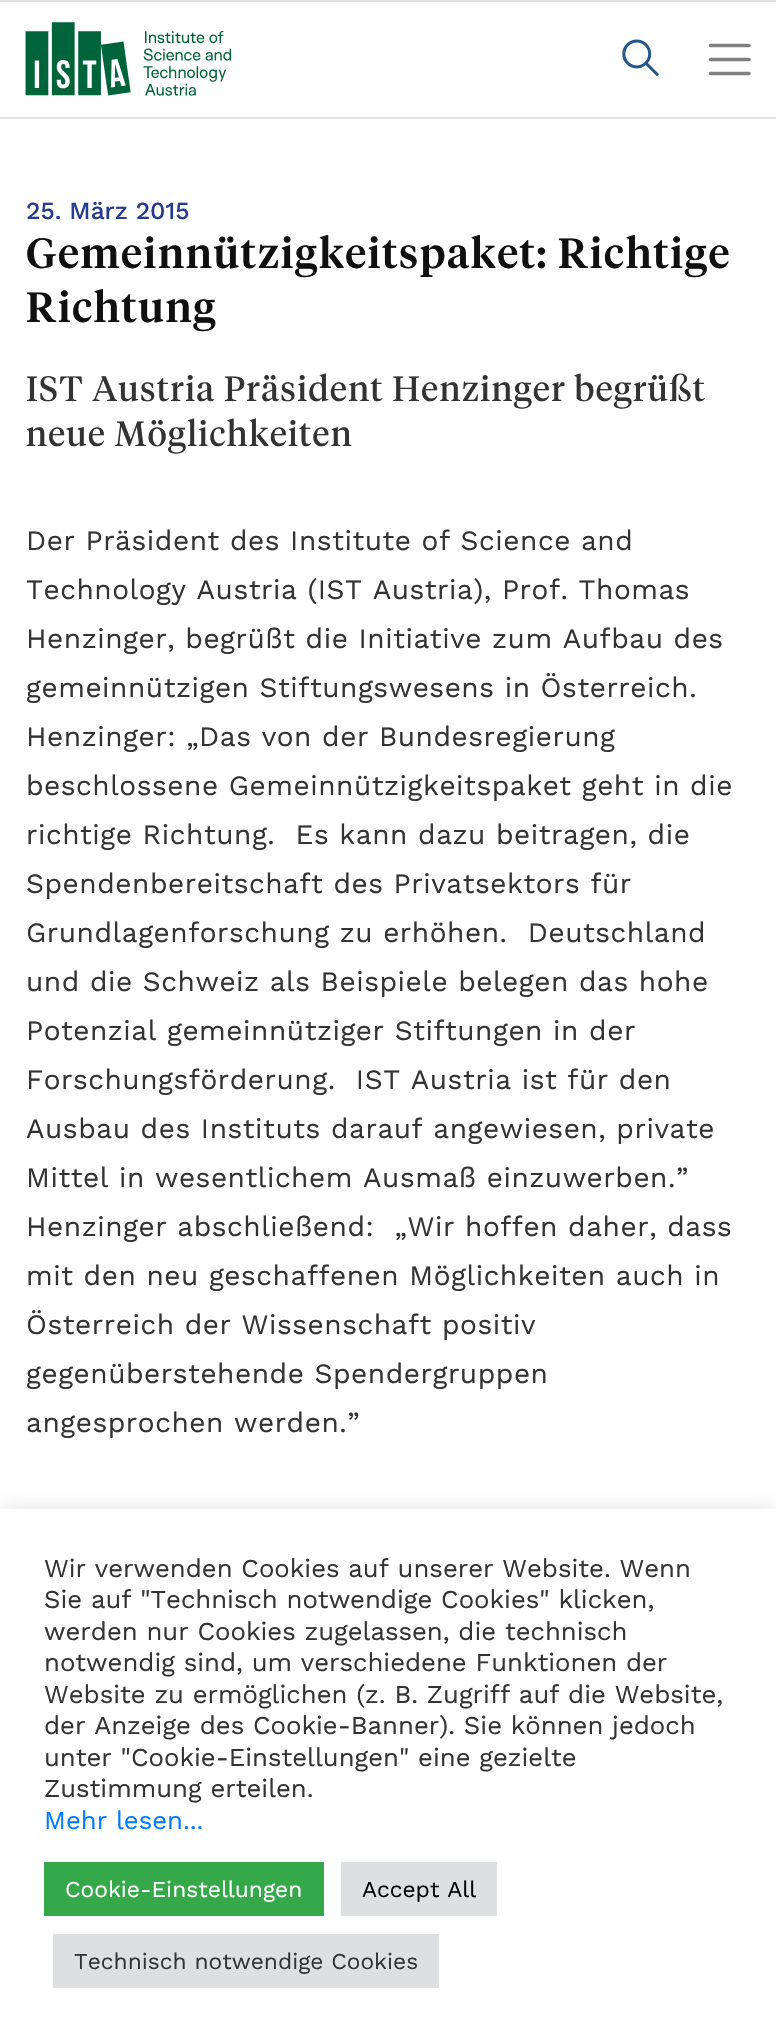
#include "include/core/SkBlurTypes.h"
#include "include/core/SkCanvas.h"
#include "include/core/SkData.h"
#include "include/core/SkFont.h"
#include "include/core/SkFontMgr.h"
#include "include/core/SkImage.h"
#include "include/core/SkMaskFilter.h"
#include "include/core/SkPaint.h"
#include "include/core/SkPathBuilder.h"
#include "include/core/SkTextBlob.h"
#include "include/effects/SkDashPathEffect.h"
#include "include/effects/SkGradientShader.h"
#include "include/utils/SkParsePath.h"

extern sk_sp<SkFontMgr> fontMgr;

static SkFont font(const char* family, int weight, float size, bool italic = false) {
    SkFontStyle style(weight, SkFontStyle::kNormal_Width,
        italic ? SkFontStyle::kItalic_Slant : SkFontStyle::kUpright_Slant);
    SkFont result(fontMgr->matchFamilyStyle(family, style), size);
    result.setSubpixel(true);
    return result;
}

static void drawLabel(SkCanvas* canvas, const char* s, float x, float y, const SkFont& font, SkColor color) {
    SkPaint ink(SkColor4f::FromColor(color));
    ink.setAntiAlias(true);
    canvas->drawString(s, x, y, font, ink);
}

static void drawTracked(SkCanvas* canvas, const char* s, float x, float y, const SkFont& font, const SkPaint& ink, float letter, float word) {
    std::vector<SkGlyphID> glyphs(font.countText(s, strlen(s), SkTextEncoding::kUTF8));
    std::vector<float> xs(glyphs.size());
    font.textToGlyphs(s, strlen(s), SkTextEncoding::kUTF8, glyphs);
    font.getXPos(glyphs, xs, x);
    float extra = 0;
    for (size_t i = 0; i < glyphs.size(); i++) {
        xs[i] += extra;
        extra += letter + word * (glyphs[i] == font.unicharToGlyph(' '));
    }
    canvas->drawTextBlob(SkTextBlob::MakeFromPosHGlyphs(glyphs, xs, y, font), 0, 0, ink);
}

static void fillRect(SkCanvas* canvas, float x, float y, float w, float h, SkColor color) {
    SkPaint ink(SkColor4f::FromColor(color));
    ink.setAntiAlias(true);
    canvas->drawRect(SkRect::MakeXYWH(x, y, w, h), ink);
}

static void drawPhoto(SkCanvas* canvas, const char* path, float x, float y, float w, float h) {
    auto image = SkImages::DeferredFromEncodedData(SkData::MakeFromFileName(path));
    canvas->drawImageRect(image, SkRect::MakeXYWH(x, y, w, h), SkSamplingOptions());
}

static SkPath parsePath(const char* data, bool evenOdd = false) {
    SkPath result = *SkParsePath::FromSVGString(data);
    if (evenOdd) result.setFillType(SkPathFillType::kEvenOdd);
    return result;
}

void draw(SkCanvas* canvas) {
    SkPaint paint;
    paint.setAntiAlias(true);
    canvas->clear(0xFFFFFFFF);
    fillRect(canvas, 0, 0, 776, 2, 0xFFDEE2E6);
    fillRect(canvas, 0, 117, 776, 2, 0xFFDEE2E6);
    drawPhoto(canvas, "assets/img1.png", 25, 22, 207, 74);
    drawPhoto(canvas, "assets/img2.png", 622, 39, 37, 38);
    paint.setStroke(true);
    paint.setStrokeWidth(3.5f);
    paint.setStrokeCap(SkPaint::kRound_Cap);
    paint.setColor(0xFF808080);
    canvas->drawPath(parsePath("M710.5 45.5H749M710.5 59.5H749M710.5 73.5H749"), paint);
    SkFont font1 = font("Work Sans", 500, 24.5f);
    drawLabel(canvas, "25. März 2015", 26, 219, font1, 0xFF253B90);
    SkFont font2 = font("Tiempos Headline", 500, 42);
    paint.setStroke(false);
    paint.setColor(0xFF101010);
    drawTracked(canvas, "Gemeinnützigkeitspaket: Richtige", 26, 268, font2, paint, 1.75f, 0);
    drawTracked(canvas, "Richtung", 26, 322, font2, paint, 1.75f, 0);
    SkFont font3 = font("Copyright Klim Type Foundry", 400, 35);
    paint.setColor(0xFF333333);
    drawTracked(canvas, "IST Austria Präsident Henzinger begrüßt", 26, 401, font3, paint, 1.4f, 0);
    drawTracked(canvas, "neue Möglichkeiten", 26, 446, font3, paint, 1.4f, 0);
    SkFont font4 = font("Work Sans", 400, 28);
    drawTracked(canvas, "Der Präsident des Institute of Science and", 26, 550, font4, paint, 0.55f, 0);
    drawTracked(canvas, "Technology Austria (IST Austria), Prof. Thomas", 26, 599, font4, paint, 0.55f, 0);
    drawTracked(canvas, "Henzinger, begrüßt die Initiative zum Aufbau des", 26, 648, font4, paint, 0.55f, 0);
    drawTracked(canvas, "gemeinnützigen Stiftungswesens in Österreich.", 26, 697, font4, paint, 0.55f, 0);
    drawTracked(canvas, "Henzinger: „Das von der Bundesregierung", 26, 746, font4, paint, 0.55f, 0);
    drawTracked(canvas, "beschlossene Gemeinnützigkeitspaket geht in die", 26, 795, font4, paint, 0.55f, 0);
    drawTracked(canvas, "richtige Richtung.  Es kann dazu beitragen, die", 26, 844, font4, paint, 0.55f, 0);
    drawTracked(canvas, "Spendenbereitschaft des Privatsektors für", 26, 893, font4, paint, 0.55f, 0);
    drawTracked(canvas, "Grundlagenforschung zu erhöhen.  Deutschland", 26, 942, font4, paint, 0.55f, 0);
    drawTracked(canvas, "und die Schweiz als Beispiele belegen das hohe", 26, 991, font4, paint, 0.55f, 0);
    drawTracked(canvas, "Potenzial gemeinnütziger Stiftungen in der", 26, 1040, font4, paint, 0.55f, 0);
    drawTracked(canvas, "Forschungsförderung.  IST Austria ist für den", 26, 1089, font4, paint, 0.55f, 0);
    drawTracked(canvas, "Ausbau des Instituts darauf angewiesen, private", 26, 1138, font4, paint, 0.55f, 0);
    drawTracked(canvas, "Mittel in wesentlichem Ausmaß einzuwerben.”", 26, 1187, font4, paint, 0.55f, 0);
    drawTracked(canvas, "Henzinger abschließend:  „Wir hoffen daher, dass", 26, 1236, font4, paint, 0.55f, 0);
    drawTracked(canvas, "mit den neu geschaffenen Möglichkeiten auch in", 26, 1285, font4, paint, 0.55f, 0);
    drawTracked(canvas, "Österreich der Wissenschaft positiv", 26, 1334, font4, paint, 0.55f, 0);
    drawTracked(canvas, "gegenüberstehende Spendergruppen", 26, 1383, font4, paint, 0.55f, 0);
    drawTracked(canvas, "angesprochen werden.”", 26, 1432, font4, paint, 0.55f, 0);
    paint.setColor(0x4DACABAB);
    paint.setMaskFilter(SkMaskFilter::MakeBlur(kNormal_SkBlurStyle, 9));
    canvas->drawRect(SkRect::MakeXYWH(0, 1507, 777, 532), paint);
    paint.setMaskFilter(nullptr);
    fillRect(canvas, 0, 1509, 776, 530, 0xFFFFFFFF);
    SkFont font5 = font("Work Sans", 400, 25.7f);
    drawLabel(canvas, "Wir verwenden Cookies auf unserer Website. Wenn", 44, 1577, font5, 0xFF333333);
    drawLabel(canvas, "Sie auf \"Technisch notwendige Cookies\" klicken,", 44, 1608, font5, 0xFF333333);
    drawLabel(canvas, "werden nur Cookies zugelassen, die technisch", 44, 1640, font5, 0xFF333333);
    drawLabel(canvas, "notwendig sind, um verschiedene Funktionen der", 44, 1671, font5, 0xFF333333);
    drawLabel(canvas, "Website zu ermöglichen (z. B. Zugriff auf die Website,", 44, 1703, font5, 0xFF333333);
    drawLabel(canvas, "der Anzeige des Cookie-Banner). Sie können jedoch", 44, 1734, font5, 0xFF333333);
    drawLabel(canvas, "unter \"Cookie-Einstellungen\" eine gezielte", 44, 1766, font5, 0xFF333333);
    drawLabel(canvas, "Zustimmung erteilen.", 44, 1797, font5, 0xFF333333);
    drawLabel(canvas, "Mehr lesen...", 44, 1829, font5, 0xFF007BFF);
    fillRect(canvas, 44, 1862, 280, 54, 0xFF35A94A);
    SkFont font6 = font("Work Sans", 400, 22.75f);
    drawLabel(canvas, "Cookie-Einstellungen", 65, 1897, font6, 0xFFFFFFFF);
    fillRect(canvas, 341, 1862, 156, 54, 0xFFDEDFE0);
    drawLabel(canvas, "Accept All", 362, 1897, font6, 0xFF000000);
    fillRect(canvas, 53, 1934, 386, 54, 0xFFDEDFE0);
    drawLabel(canvas, "Technisch notwendige Cookies", 74, 1969, font6, 0xFF333333);
}
